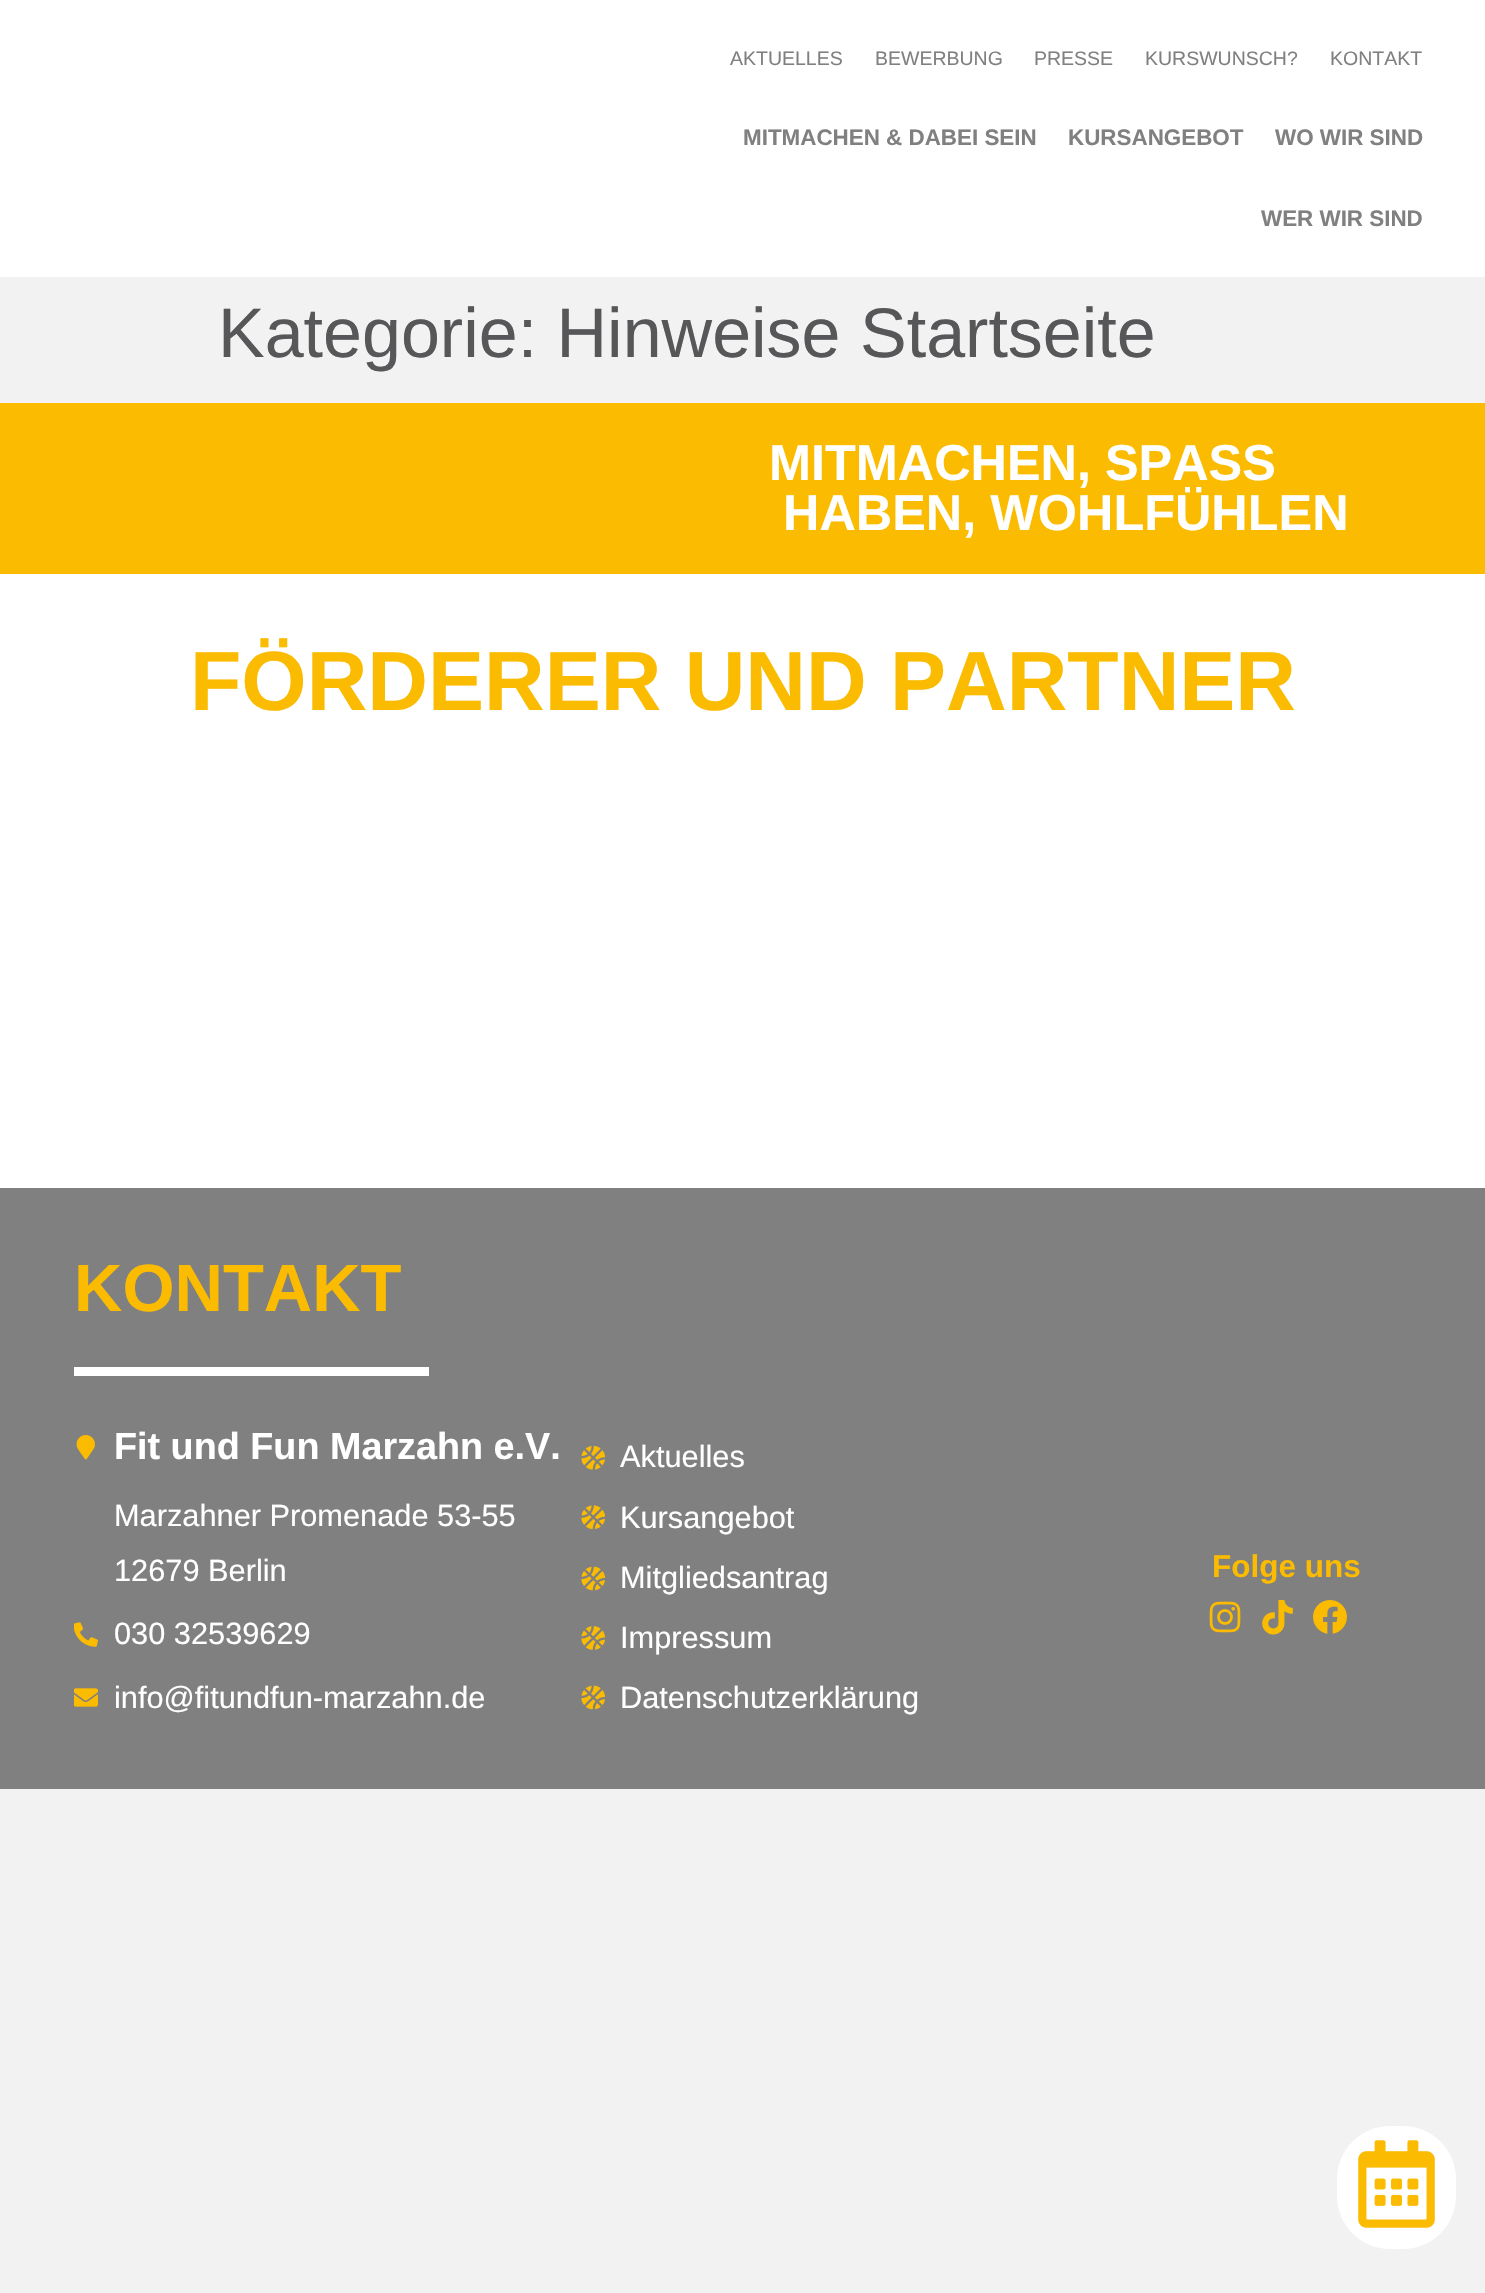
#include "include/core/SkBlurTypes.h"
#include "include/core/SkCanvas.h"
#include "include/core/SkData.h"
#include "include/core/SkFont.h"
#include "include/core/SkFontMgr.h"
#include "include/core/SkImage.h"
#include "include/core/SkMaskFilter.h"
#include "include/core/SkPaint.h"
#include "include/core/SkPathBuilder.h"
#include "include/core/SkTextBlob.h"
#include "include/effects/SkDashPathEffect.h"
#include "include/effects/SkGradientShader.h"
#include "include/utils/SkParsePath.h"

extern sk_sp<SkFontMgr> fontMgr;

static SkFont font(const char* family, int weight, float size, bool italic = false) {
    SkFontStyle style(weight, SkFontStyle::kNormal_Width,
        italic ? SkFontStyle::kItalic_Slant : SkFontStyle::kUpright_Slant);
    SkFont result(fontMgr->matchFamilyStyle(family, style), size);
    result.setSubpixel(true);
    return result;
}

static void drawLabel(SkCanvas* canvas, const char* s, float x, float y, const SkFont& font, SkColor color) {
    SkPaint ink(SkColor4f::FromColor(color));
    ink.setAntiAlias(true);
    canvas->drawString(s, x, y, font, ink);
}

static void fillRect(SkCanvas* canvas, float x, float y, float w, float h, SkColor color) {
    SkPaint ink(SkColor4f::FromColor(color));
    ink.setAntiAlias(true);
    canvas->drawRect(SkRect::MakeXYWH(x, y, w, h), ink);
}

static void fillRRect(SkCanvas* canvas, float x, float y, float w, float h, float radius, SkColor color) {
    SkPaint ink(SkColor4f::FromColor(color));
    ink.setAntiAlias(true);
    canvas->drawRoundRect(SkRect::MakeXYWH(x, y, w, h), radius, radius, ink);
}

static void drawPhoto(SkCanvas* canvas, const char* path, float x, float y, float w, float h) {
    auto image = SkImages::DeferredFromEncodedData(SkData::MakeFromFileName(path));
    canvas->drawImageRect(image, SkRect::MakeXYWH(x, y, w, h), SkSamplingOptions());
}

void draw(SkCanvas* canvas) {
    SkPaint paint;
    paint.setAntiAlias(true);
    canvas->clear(0xFFF2F2F2);
    fillRect(canvas, 0, 0, 1485, 277, 0xFFFFFFFF);
    SkFont font1 = font("Liberation Sans", 400, 19.5f);
    drawLabel(canvas, "AKTUELLES", 730, 65, font1, 0xFF808080);
    drawLabel(canvas, "BEWERBUNG", 875, 65, font1, 0xFF808080);
    drawLabel(canvas, "PRESSE", 1034, 65, font1, 0xFF808080);
    drawLabel(canvas, "KURSWUNSCH?", 1145, 65, font1, 0xFF808080);
    drawLabel(canvas, "KONTAKT", 1330, 65, font1, 0xFF808080);
    SkFont font2 = font("Liberation Sans", 700, 22.4f);
    drawLabel(canvas, "MITMACHEN & DABEI SEIN", 743, 145, font2, 0xFF808080);
    drawLabel(canvas, "KURSANGEBOT", 1068, 145, font2, 0xFF808080);
    drawLabel(canvas, "WO WIR SIND", 1275, 145, font2, 0xFF808080);
    drawLabel(canvas, "WER WIR SIND", 1261, 226, font2, 0xFF808080);
    fillRRect(canvas, 1337, 2126, 119, 123, 53, 0xFFFFFFFF);
    drawPhoto(canvas, "assets/img1.png", 1358, 2140, 77, 88);
    SkFont font3 = font("Liberation Sans", 400, 70);
    drawLabel(canvas, "Kategorie: Hinweise Startseite", 218, 357, font3, 0xFF575759);
    fillRect(canvas, 0, 403, 1485, 171, 0xFFFABB00);
    SkFont font4 = font("Liberation Sans", 700, 50.4f);
    drawLabel(canvas, "MITMACHEN, SPASS", 769, 480, font4, 0xFFFFFFFF);
    drawLabel(canvas, "HABEN, WOHLFÜHLEN", 783, 530, font4, 0xFFFFFFFF);
    fillRect(canvas, 0, 574, 1485, 614, 0xFFFFFFFF);
    SkFont font5 = font("Liberation Sans", 700, 84);
    drawLabel(canvas, "FÖRDERER UND PARTNER", 190, 710, font5, 0xFFFABB00);
    fillRect(canvas, 0, 1188, 1485, 601, 0xFF808080);
    SkFont font6 = font("Liberation Sans", 700, 67);
    drawLabel(canvas, "KONTAKT", 74, 1311, font6, 0xFFFABB00);
    fillRect(canvas, 74, 1367, 355, 9, 0xFFFFFFFF);
    drawPhoto(canvas, "assets/img2.png", 76, 1435, 19, 25);
    SkFont font7 = font("Liberation Sans", 700, 37.75f);
    drawLabel(canvas, "Fit und Fun Marzahn e.V.", 114, 1459, font7, 0xFFFFFFFF);
    SkFont font8 = font("Liberation Sans", 400, 30.75f);
    drawLabel(canvas, "Marzahner Promenade 53-55", 114, 1526, font8, 0xFFFFFFFF);
    drawLabel(canvas, "12679 Berlin", 114, 1581, font8, 0xFFFFFFFF);
    drawPhoto(canvas, "assets/img3.png", 74, 1622, 24, 25);
    drawLabel(canvas, "030 32539629", 114, 1644, font8, 0xFFFFFFFF);
    drawPhoto(canvas, "assets/img4.png", 74, 1688, 24, 19);
    drawLabel(canvas, "info@fitundfun-marzahn.de", 114, 1708, font8, 0xFFFFFFFF);
    drawPhoto(canvas, "assets/img5.png", 581, 1446, 25, 24);
    drawLabel(canvas, "Aktuelles", 620, 1467, font8, 0xFFFFFFFF);
    drawPhoto(canvas, "assets/img6.png", 581, 1505, 25, 25);
    drawLabel(canvas, "Kursangebot", 620, 1528, font8, 0xFFFFFFFF);
    drawPhoto(canvas, "assets/img7.png", 581, 1566, 25, 25);
    drawLabel(canvas, "Mitgliedsantrag", 620, 1588, font8, 0xFFFFFFFF);
    drawPhoto(canvas, "assets/img8.png", 581, 1626, 25, 24);
    drawLabel(canvas, "Impressum", 620, 1648, font8, 0xFFFFFFFF);
    drawPhoto(canvas, "assets/img7.png", 581, 1685, 25, 25);
    drawLabel(canvas, "Datenschutzerklärung", 620, 1708, font8, 0xFFFFFFFF);
    SkFont font9 = font("Liberation Sans", 700, 31.5f);
    drawLabel(canvas, "Folge uns", 1212, 1577, font9, 0xFFFABB00);
    drawPhoto(canvas, "assets/img9.png", 1209, 1601, 32, 32);
    drawPhoto(canvas, "assets/img10.png", 1262, 1600, 31, 35);
    drawPhoto(canvas, "assets/img11.png", 1313, 1600, 34, 34);
}
